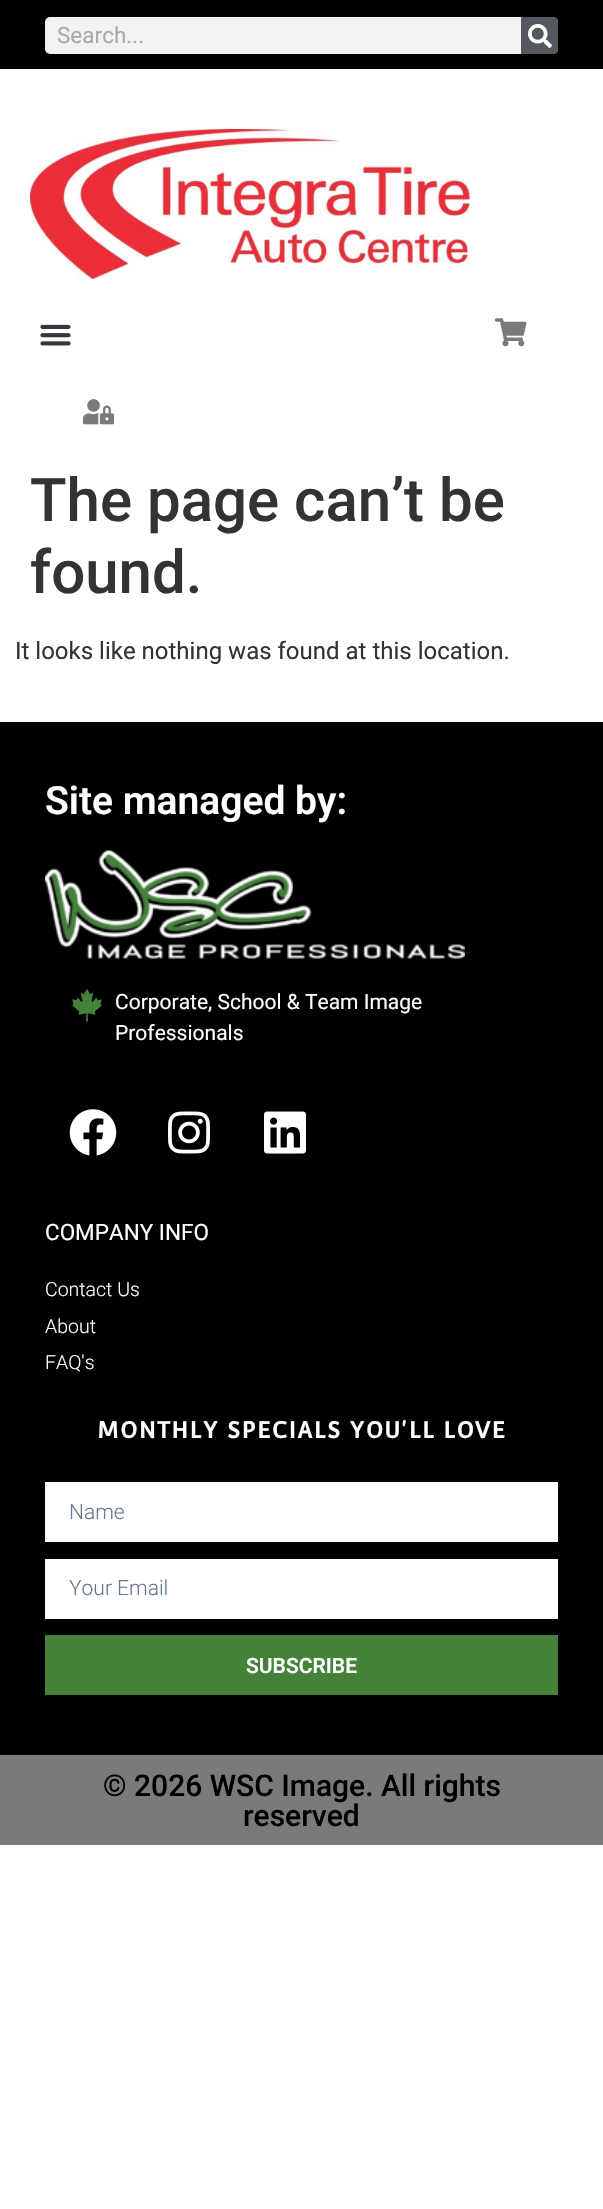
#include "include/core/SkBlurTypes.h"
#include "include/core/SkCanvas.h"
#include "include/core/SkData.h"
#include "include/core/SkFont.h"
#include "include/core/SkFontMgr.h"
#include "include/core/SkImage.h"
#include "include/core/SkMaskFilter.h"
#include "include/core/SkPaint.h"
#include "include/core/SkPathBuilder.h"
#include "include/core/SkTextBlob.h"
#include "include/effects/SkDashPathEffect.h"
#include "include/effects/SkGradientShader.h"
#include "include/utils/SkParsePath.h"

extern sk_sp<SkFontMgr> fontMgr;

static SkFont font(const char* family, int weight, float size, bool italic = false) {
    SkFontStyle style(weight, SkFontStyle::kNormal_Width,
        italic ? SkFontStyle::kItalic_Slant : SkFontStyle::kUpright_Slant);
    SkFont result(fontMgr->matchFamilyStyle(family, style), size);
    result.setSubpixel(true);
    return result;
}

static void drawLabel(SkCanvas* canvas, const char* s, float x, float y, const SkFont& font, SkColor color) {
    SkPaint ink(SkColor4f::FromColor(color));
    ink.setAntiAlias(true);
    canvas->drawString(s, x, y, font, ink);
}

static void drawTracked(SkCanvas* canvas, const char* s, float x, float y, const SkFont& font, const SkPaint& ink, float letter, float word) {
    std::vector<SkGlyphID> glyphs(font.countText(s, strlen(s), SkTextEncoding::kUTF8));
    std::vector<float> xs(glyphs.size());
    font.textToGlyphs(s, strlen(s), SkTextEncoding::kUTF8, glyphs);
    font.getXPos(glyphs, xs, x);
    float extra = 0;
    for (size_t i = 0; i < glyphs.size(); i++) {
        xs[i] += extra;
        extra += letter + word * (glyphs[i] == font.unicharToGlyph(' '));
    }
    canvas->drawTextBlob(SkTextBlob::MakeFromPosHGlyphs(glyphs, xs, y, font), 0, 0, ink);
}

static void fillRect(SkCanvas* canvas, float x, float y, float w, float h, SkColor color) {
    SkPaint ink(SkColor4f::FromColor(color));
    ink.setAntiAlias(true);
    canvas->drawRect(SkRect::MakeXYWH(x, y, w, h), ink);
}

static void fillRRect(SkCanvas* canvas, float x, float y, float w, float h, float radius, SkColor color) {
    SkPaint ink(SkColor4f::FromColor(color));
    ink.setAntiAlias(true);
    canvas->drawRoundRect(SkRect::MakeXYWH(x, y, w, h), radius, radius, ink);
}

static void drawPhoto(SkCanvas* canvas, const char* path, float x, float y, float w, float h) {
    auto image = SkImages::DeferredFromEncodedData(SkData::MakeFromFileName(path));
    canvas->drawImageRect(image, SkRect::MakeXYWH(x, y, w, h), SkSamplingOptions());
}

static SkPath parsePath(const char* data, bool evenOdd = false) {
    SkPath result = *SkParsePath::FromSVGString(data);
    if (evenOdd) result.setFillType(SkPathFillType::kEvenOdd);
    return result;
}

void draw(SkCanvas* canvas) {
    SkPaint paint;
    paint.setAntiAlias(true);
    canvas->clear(0xFFFFFFFF);
    fillRect(canvas, 0, 0, 603, 69, 0xFF000000);
    fillRRect(canvas, 45, 17, 513, 37, 5, 0xFFF1F2F3);
    SkFont font1 = font("Roboto", 400, 22.5f);
    drawLabel(canvas, "Search...", 57, 43, font1, 0xFFAAAAAA);
    paint.setColor(0xFF54595F);
    canvas->drawPath(parsePath("M521 17H553C556 17 558 19 558 22V49C558 52 556 54 553 54H521Z"), paint);
    drawPhoto(canvas, "assets/img1.png", 528, 24, 24, 24);
    drawPhoto(canvas, "assets/img2.png", 30, 129, 440, 150);
    drawPhoto(canvas, "assets/img3.png", 40, 324, 31, 22);
    drawPhoto(canvas, "assets/img4.png", 495, 318, 32, 29);
    drawPhoto(canvas, "assets/img5.png", 83, 399, 31, 26);
    SkFont font2 = font("Roboto", 500, 60);
    drawLabel(canvas, "The page can’t be", 30, 521, font2, 0xFF333333);
    drawLabel(canvas, "found.", 30, 593, font2, 0xFF333333);
    SkFont font3 = font("Roboto", 400, 24);
    drawLabel(canvas, "It looks like nothing was found at this location.", 15, 659, font3, 0xFF333333);
    fillRect(canvas, 0, 722, 603, 1033, 0xFF000000);
    SkFont font4 = font("Roboto", 600, 39);
    drawLabel(canvas, "Site managed by:", 45, 814, font4, 0xFFFFFFFF);
    drawPhoto(canvas, "assets/img6.png", 45, 850, 420, 109);
    drawPhoto(canvas, "assets/img7.png", 72, 989, 30, 33);
    SkFont font5 = font("Roboto", 400, 21);
    drawLabel(canvas, "Corporate, School & Team Image", 115, 1009, font5, 0xFFFFFFFF);
    drawLabel(canvas, "Professionals", 115, 1040, font5, 0xFFFFFFFF);
    drawPhoto(canvas, "assets/img8.png", 69, 1109, 48, 47);
    drawPhoto(canvas, "assets/img9.png", 168, 1111, 42, 43);
    drawPhoto(canvas, "assets/img10.png", 264, 1111, 42, 43);
    drawLabel(canvas, "COMPANY INFO", 45, 1240, font1, 0xFFFFFFFF);
    SkFont font6 = font("Roboto", 300, 19.5f);
    drawLabel(canvas, "Contact Us", 45, 1296, font6, 0xFFFFFFFF);
    drawLabel(canvas, "About", 45, 1333, font6, 0xFFFFFFFF);
    drawLabel(canvas, "FAQ's", 45, 1369, font6, 0xFFFFFFFF);
    SkFont font7 = font("Convergence", 700, 22.5f);
    paint.setColor(0xFFFFFFFF);
    drawTracked(canvas, "MONTHLY SPECIALS YOU'LL LOVE", 97, 1438, font7, paint, 1.5f, 0);
    fillRect(canvas, 45, 1482, 513, 60, 0xFFFFFFFF);
    SkFont font8 = font("Roboto", 300, 21);
    drawLabel(canvas, "Name", 69, 1519, font8, 0xFF66798C);
    fillRect(canvas, 45, 1559, 513, 60, 0xFFFFFFFF);
    drawLabel(canvas, "Your Email", 69, 1595, font8, 0xFF66798C);
    fillRect(canvas, 45, 1635, 513, 60, 0xFF44823A);
    SkFont font9 = font("Roboto", 600, 21);
    drawLabel(canvas, "SUBSCRIBE", 246, 1673, font9, 0xFFFFFFFF);
    fillRect(canvas, 0, 1755, 603, 90, 0xFF7A7A7A);
    SkFont font10 = font("Roboto", 500, 30);
    drawLabel(canvas, "© 2026 WSC Image. All rights", 103, 1796, font10, 0xFF000000);
    drawLabel(canvas, "reserved", 243, 1826, font10, 0xFF000000);
}
